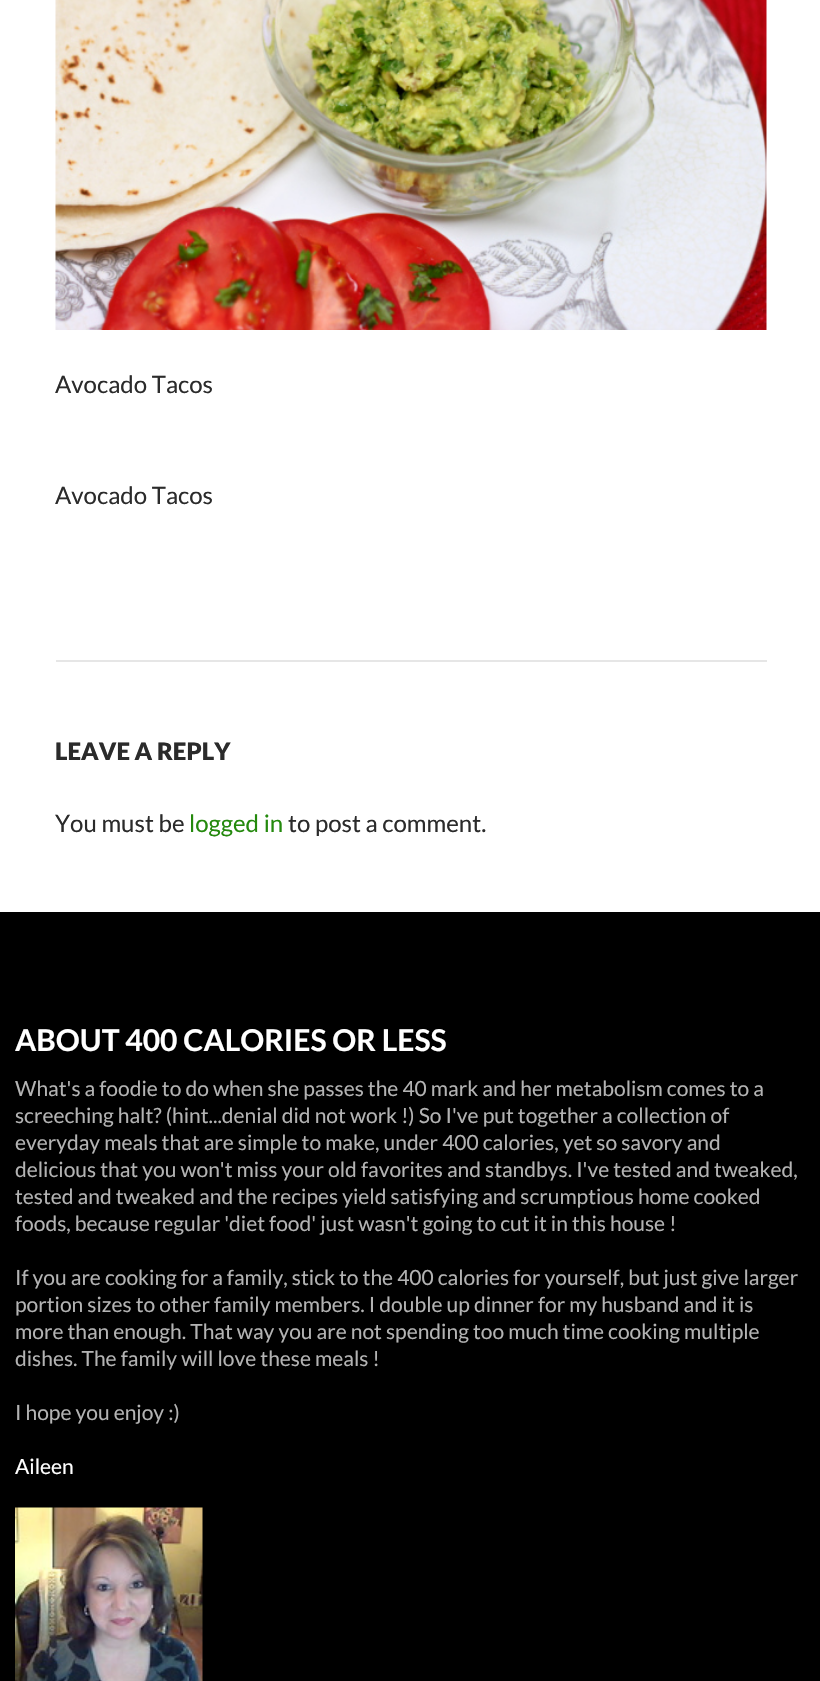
#include "include/core/SkBlurTypes.h"
#include "include/core/SkCanvas.h"
#include "include/core/SkData.h"
#include "include/core/SkFont.h"
#include "include/core/SkFontMgr.h"
#include "include/core/SkImage.h"
#include "include/core/SkMaskFilter.h"
#include "include/core/SkPaint.h"
#include "include/core/SkPathBuilder.h"
#include "include/core/SkTextBlob.h"
#include "include/effects/SkDashPathEffect.h"
#include "include/effects/SkGradientShader.h"
#include "include/utils/SkParsePath.h"

extern sk_sp<SkFontMgr> fontMgr;

static SkFont font(const char* family, int weight, float size, bool italic = false) {
    SkFontStyle style(weight, SkFontStyle::kNormal_Width,
        italic ? SkFontStyle::kItalic_Slant : SkFontStyle::kUpright_Slant);
    SkFont result(fontMgr->matchFamilyStyle(family, style), size);
    result.setSubpixel(true);
    return result;
}

static void drawLabel(SkCanvas* canvas, const char* s, float x, float y, const SkFont& font, SkColor color) {
    SkPaint ink(SkColor4f::FromColor(color));
    ink.setAntiAlias(true);
    canvas->drawString(s, x, y, font, ink);
}

static void fillRect(SkCanvas* canvas, float x, float y, float w, float h, SkColor color) {
    SkPaint ink(SkColor4f::FromColor(color));
    ink.setAntiAlias(true);
    canvas->drawRect(SkRect::MakeXYWH(x, y, w, h), ink);
}

static void drawPhoto(SkCanvas* canvas, const char* path, float x, float y, float w, float h) {
    auto image = SkImages::DeferredFromEncodedData(SkData::MakeFromFileName(path));
    canvas->drawImageRect(image, SkRect::MakeXYWH(x, y, w, h), SkSamplingOptions());
}

void draw(SkCanvas* canvas) {
    SkPaint paint;
    paint.setAntiAlias(true);
    canvas->clear(0xFFFFFFFF);
    drawPhoto(canvas, "assets/img1.png", 55, 0, 712, 330);
    SkFont font1 = font("Lato", 400, 24);
    drawLabel(canvas, "Avocado Tacos", 55, 393, font1, 0xFF2B2B2B);
    drawLabel(canvas, "Avocado Tacos", 55, 504, font1, 0xFF2B2B2B);
    fillRect(canvas, 56, 660, 711, 2, 0xFFE6E6E6);
    SkFont font2 = font("Lato", 900, 24);
    drawLabel(canvas, "LEAVE A REPLY", 55, 760, font2, 0xFF2B2B2B);
    drawLabel(canvas, "You must be", 55, 832, font1, 0xFF2B2B2B);
    drawLabel(canvas, "logged in", 189, 832, font1, 0xFF24890D);
    drawLabel(canvas, "to post a comment.", 288, 832, font1, 0xFF2B2B2B);
    fillRect(canvas, 0, 912, 820, 769, 0xFF000000);
    SkFont font3 = font("Lato", 700, 30);
    drawLabel(canvas, "ABOUT 400 CALORIES OR LESS", 15, 1051, font3, 0xFFFFFFFF);
    SkFont font4 = font("Lato", 400, 21);
    drawLabel(canvas, "What's a foodie to do when she passes the 40 mark and her metabolism comes to a", 15, 1096, font4, 0xFFB3B3B3);
    drawLabel(canvas, "screeching halt? (hint...denial did not work !) So I've put together a collection of", 15, 1123, font4, 0xFFB3B3B3);
    drawLabel(canvas, "everyday meals that are simple to make, under 400 calories, yet so savory and", 15, 1150, font4, 0xFFB3B3B3);
    drawLabel(canvas, "delicious that you won't miss your old favorites and standbys. I've tested and tweaked,", 15, 1177, font4, 0xFFB3B3B3);
    drawLabel(canvas, "tested and tweaked and the recipes yield satisfying and scrumptious home cooked", 15, 1204, font4, 0xFFB3B3B3);
    drawLabel(canvas, "foods, because regular 'diet food' just wasn't going to cut it in this house !", 15, 1231, font4, 0xFFB3B3B3);
    drawLabel(canvas, "If you are cooking for a family, stick to the 400 calories for yourself, but just give larger", 15, 1285, font4, 0xFFB3B3B3);
    drawLabel(canvas, "portion sizes to other family members. I double up dinner for my husband and it is", 15, 1312, font4, 0xFFB3B3B3);
    drawLabel(canvas, "more than enough. That way you are not spending too much time cooking multiple", 15, 1339, font4, 0xFFB3B3B3);
    drawLabel(canvas, "dishes. The family will love these meals !", 15, 1366, font4, 0xFFB3B3B3);
    drawLabel(canvas, "I hope you enjoy :)", 15, 1420, font4, 0xFFB3B3B3);
    drawLabel(canvas, "Aileen", 15, 1474, font4, 0xFFFFFFFF);
    drawPhoto(canvas, "assets/img2.png", 15, 1507, 188, 174);
}
